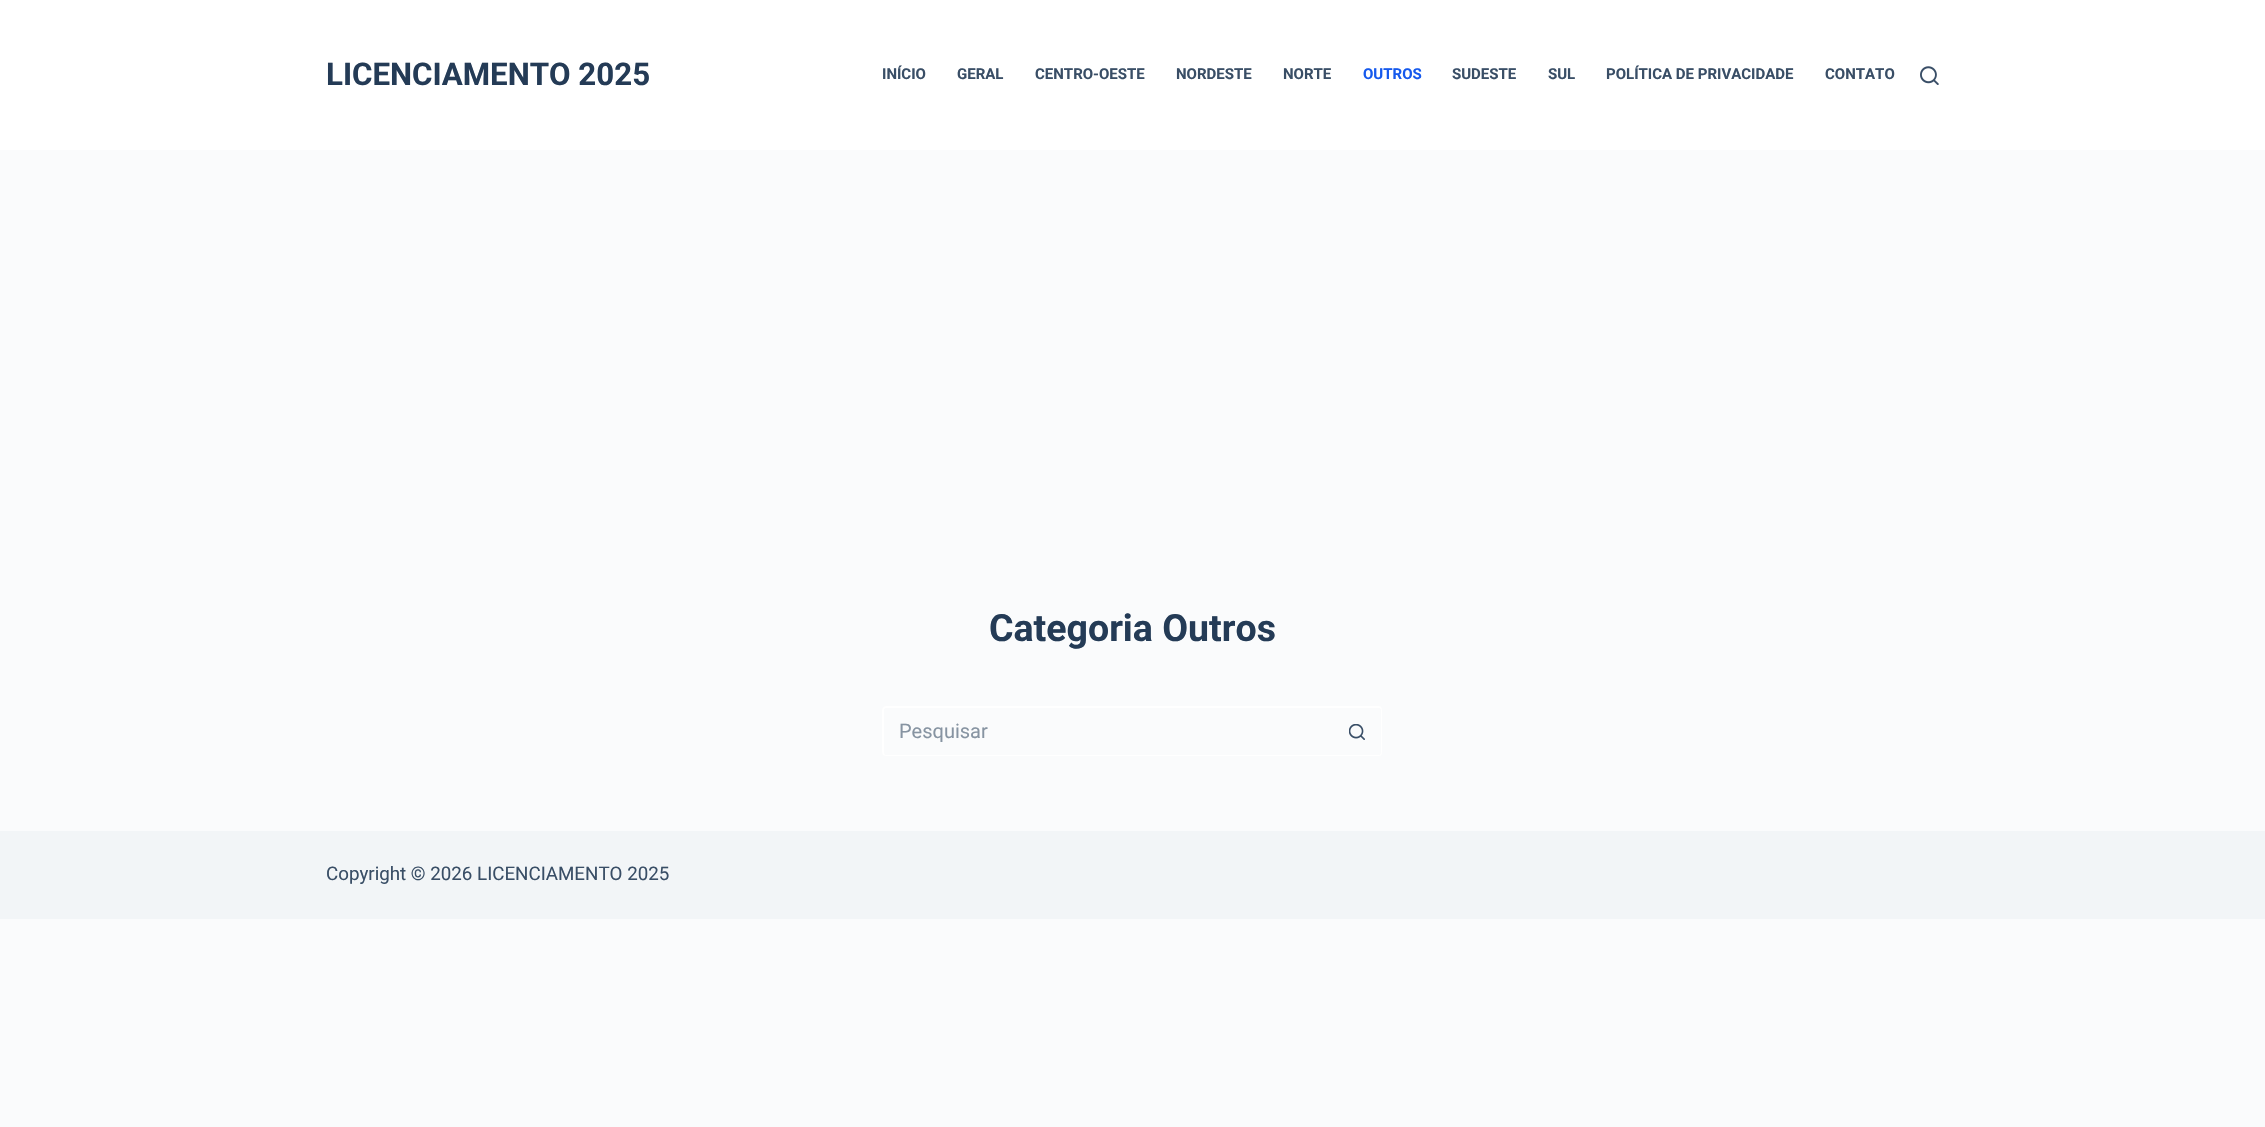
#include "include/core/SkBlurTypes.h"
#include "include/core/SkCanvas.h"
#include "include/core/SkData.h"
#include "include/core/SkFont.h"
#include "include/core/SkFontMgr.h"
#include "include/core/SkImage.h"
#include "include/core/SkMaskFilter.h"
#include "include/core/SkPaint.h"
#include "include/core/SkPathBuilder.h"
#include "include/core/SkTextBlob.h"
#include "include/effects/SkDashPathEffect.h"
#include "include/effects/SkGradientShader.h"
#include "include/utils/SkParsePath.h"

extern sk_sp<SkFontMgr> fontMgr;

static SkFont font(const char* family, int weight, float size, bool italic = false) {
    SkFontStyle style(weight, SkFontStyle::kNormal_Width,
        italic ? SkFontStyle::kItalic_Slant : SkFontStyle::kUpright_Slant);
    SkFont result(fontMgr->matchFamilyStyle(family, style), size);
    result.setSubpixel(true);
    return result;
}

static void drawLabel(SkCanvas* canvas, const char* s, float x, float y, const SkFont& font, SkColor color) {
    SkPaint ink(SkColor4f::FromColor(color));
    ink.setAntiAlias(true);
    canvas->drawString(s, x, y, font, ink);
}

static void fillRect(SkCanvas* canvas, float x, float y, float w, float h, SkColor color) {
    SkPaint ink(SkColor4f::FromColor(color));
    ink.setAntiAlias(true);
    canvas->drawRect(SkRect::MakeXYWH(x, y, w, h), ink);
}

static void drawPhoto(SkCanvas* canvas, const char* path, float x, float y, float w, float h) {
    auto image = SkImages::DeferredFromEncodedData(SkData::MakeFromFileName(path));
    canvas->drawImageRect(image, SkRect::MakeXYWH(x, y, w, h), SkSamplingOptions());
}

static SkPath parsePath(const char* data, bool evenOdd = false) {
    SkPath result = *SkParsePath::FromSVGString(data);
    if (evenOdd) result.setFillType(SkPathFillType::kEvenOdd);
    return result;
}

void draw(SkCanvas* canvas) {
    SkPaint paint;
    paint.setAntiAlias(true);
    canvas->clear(0xFFFAFBFC);
    fillRect(canvas, 0, 0, 2265, 150, 0xFFFFFFFF);
    SkFont font1 = font("Roboto", 700, 31.25f);
    drawLabel(canvas, "LICENCIAMENTO 2025", 326, 85, font1, 0xFF243B56);
    SkFont font2 = font("Roboto", 700, 15);
    drawLabel(canvas, "INÍCIO", 882, 79, font2, 0xFF394E66);
    drawLabel(canvas, "GERAL", 957, 79, font2, 0xFF394E66);
    drawLabel(canvas, "CENTRO-OESTE", 1035, 79, font2, 0xFF394E66);
    drawLabel(canvas, "NORDESTE", 1176, 79, font2, 0xFF394E66);
    drawLabel(canvas, "NORTE", 1283, 79, font2, 0xFF394E66);
    drawLabel(canvas, "OUTROS", 1363, 79, font2, 0xFF1559ED);
    drawLabel(canvas, "SUDESTE", 1452, 79, font2, 0xFF394E66);
    drawLabel(canvas, "SUL", 1548, 79, font2, 0xFF394E66);
    drawLabel(canvas, "POLÍTICA DE PRIVACIDADE", 1606, 79, font2, 0xFF394E66);
    drawLabel(canvas, "CONTATO", 1825, 79, font2, 0xFF394E66);
    drawPhoto(canvas, "assets/img1.png", 1920, 66, 19, 19);
    SkFont font3 = font("Roboto", 700, 37.5f);
    drawLabel(canvas, "Categoria Outros", 989, 641, font3, 0xFF243B56);
    paint.setColor(0xFFFFFFFF);
    canvas->drawPath(parsePath("M886 706H1332V756H886C884 756 882 755 882 752V710C882 708 884 706 886 706ZM886 708H1332V755H886C885 755 884 754 884 752V710C884 709 885 708 886 708Z", true), paint);
    SkFont font4 = font("Roboto", 400, 20);
    drawLabel(canvas, "Pesquisar", 899, 738, font4, 0xFF8794A2);
    canvas->drawPath(parsePath("M1332 706H1379C1381 706 1382 708 1382 710V752C1382 755 1381 756 1379 756H1332ZM1332 708H1379C1380 708 1381 709 1381 710V752C1381 754 1380 755 1379 755H1332Z", true), paint);
    drawPhoto(canvas, "assets/img2.png", 1349, 724, 16, 16);
    fillRect(canvas, 0, 831, 2265, 88, 0xFFF2F5F7);
    SkFont font5 = font("Roboto", 400, 18.75f);
    drawLabel(canvas, "Copyright © 2026 LICENCIAMENTO 2025", 326, 880, font5, 0xFF394E66);
}
